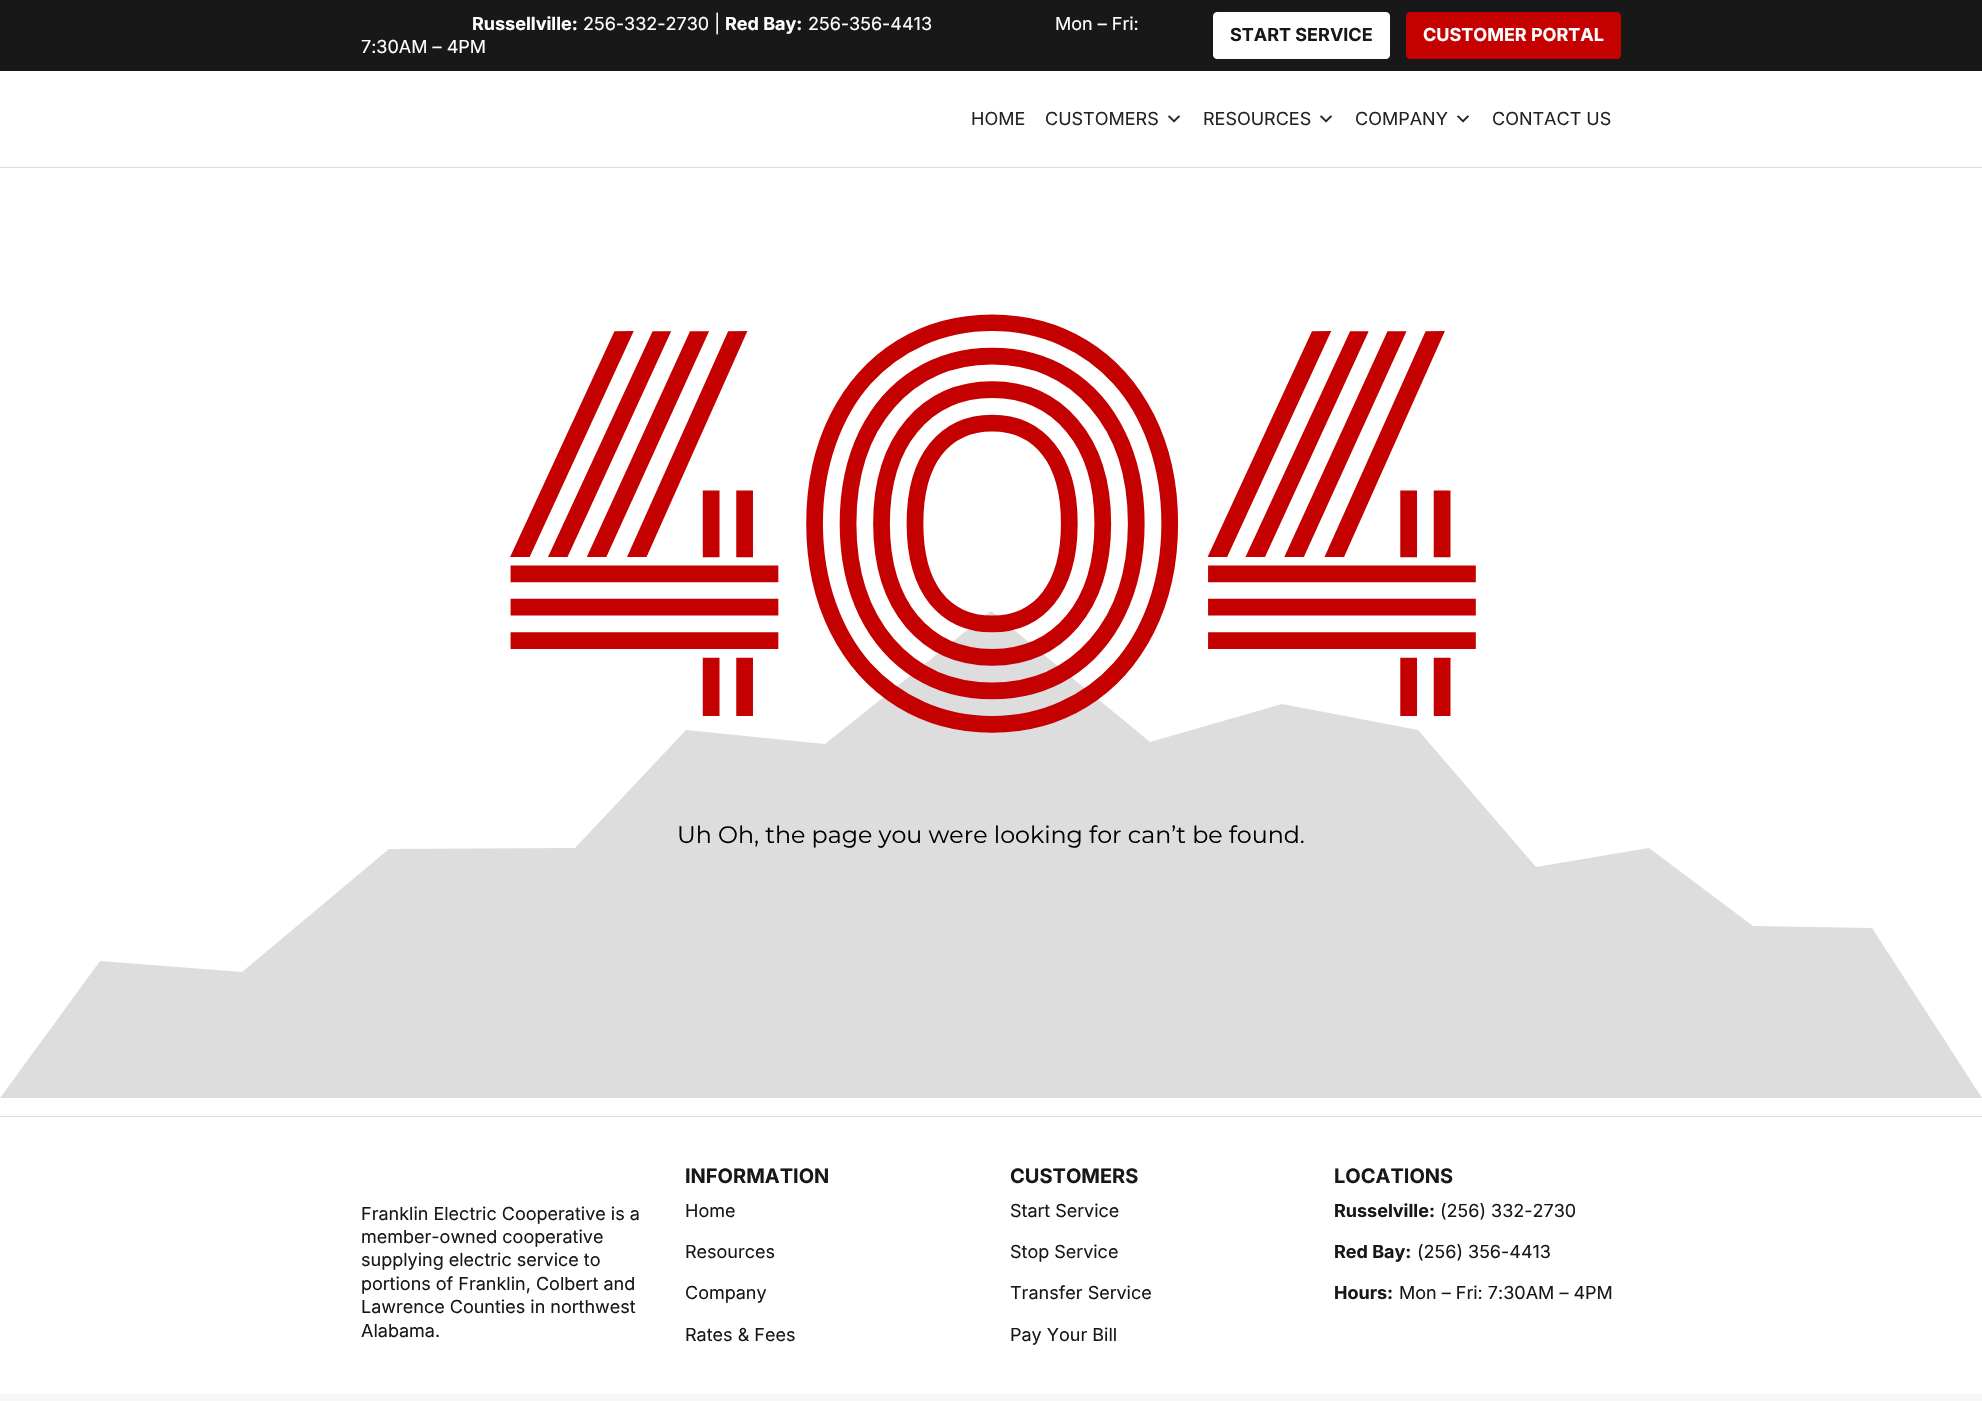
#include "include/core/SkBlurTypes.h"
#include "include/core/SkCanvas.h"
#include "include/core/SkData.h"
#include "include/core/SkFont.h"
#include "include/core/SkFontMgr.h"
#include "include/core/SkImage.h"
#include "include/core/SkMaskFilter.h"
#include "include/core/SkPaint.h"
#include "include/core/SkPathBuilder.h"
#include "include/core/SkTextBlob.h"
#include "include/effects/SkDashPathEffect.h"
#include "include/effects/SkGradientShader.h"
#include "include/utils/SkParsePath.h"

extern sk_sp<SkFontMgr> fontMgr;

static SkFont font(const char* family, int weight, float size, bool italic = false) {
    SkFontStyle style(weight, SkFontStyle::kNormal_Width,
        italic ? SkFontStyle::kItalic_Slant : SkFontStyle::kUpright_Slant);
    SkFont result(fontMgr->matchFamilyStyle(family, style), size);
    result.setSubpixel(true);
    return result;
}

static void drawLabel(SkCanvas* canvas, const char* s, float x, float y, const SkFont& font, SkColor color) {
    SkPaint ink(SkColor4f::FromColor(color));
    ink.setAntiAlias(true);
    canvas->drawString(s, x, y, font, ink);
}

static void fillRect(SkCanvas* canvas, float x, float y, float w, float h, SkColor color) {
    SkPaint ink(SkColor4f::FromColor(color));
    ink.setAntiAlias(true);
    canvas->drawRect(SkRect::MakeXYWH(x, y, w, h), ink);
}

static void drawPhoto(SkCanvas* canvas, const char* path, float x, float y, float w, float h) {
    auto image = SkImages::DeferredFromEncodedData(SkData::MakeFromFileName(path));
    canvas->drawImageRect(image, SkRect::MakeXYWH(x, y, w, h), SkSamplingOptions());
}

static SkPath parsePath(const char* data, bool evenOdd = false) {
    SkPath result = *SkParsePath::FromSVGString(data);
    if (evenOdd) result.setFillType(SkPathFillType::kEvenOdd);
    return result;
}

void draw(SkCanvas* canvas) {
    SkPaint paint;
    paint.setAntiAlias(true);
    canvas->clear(0xFFFFFFFF);
    fillRect(canvas, 0, 0, 1982, 71, 0xFF181818);
    SkFont font1 = font("Inter", 700, 18);
    drawLabel(canvas, "Russellville:", 472, 30, font1, 0xFFFFFFFF);
    SkFont font2 = font("Inter", 400, 18);
    drawLabel(canvas, "256-332-2730 |", 583, 30, font2, 0xFFFFFFFF);
    drawLabel(canvas, "Red Bay:", 725, 30, font1, 0xFFFFFFFF);
    drawLabel(canvas, "256-356-4413", 808, 30, font2, 0xFFFFFFFF);
    drawLabel(canvas, "Mon – Fri:", 1055, 30, font2, 0xFFFFFFFF);
    drawLabel(canvas, "7:30AM – 4PM", 361, 53, font2, 0xFFFFFFFF);
    paint.setColor(0xFFFFFFFF);
    canvas->drawRoundRect(SkRect::MakeXYWH(1213.5f, 12.5f, 176, 46), 3.5f, 3.5f, paint);
    paint.setStroke(true);
    paint.setStrokeWidth(1);
    canvas->drawRoundRect(SkRect::MakeXYWH(1213.5f, 12.5f, 176, 46), 3.5f, 3.5f, paint);
    drawLabel(canvas, "START SERVICE", 1230, 41, font1, 0xFF181818);
    paint.setStroke(false);
    paint.setColor(0xFFC40001);
    canvas->drawRoundRect(SkRect::MakeXYWH(1406.5f, 12.5f, 214, 46), 3.5f, 3.5f, paint);
    paint.setStroke(true);
    canvas->drawRoundRect(SkRect::MakeXYWH(1406.5f, 12.5f, 214, 46), 3.5f, 3.5f, paint);
    drawLabel(canvas, "CUSTOMER PORTAL", 1423, 41, font1, 0xFFFFFFFF);
    fillRect(canvas, 0, 167, 1982, 1, 0xFFDDDDDD);
    drawLabel(canvas, "HOME", 971, 125, font2, 0xFF232323);
    drawLabel(canvas, "CUSTOMERS", 1045, 125, font2, 0xFF232323);
    drawPhoto(canvas, "assets/img1.png", 1167, 115, 14, 8);
    drawLabel(canvas, "RESOURCES", 1203, 125, font2, 0xFF232323);
    drawPhoto(canvas, "assets/img1.png", 1319, 115, 14, 8);
    drawLabel(canvas, "COMPANY", 1355, 125, font2, 0xFF232323);
    drawPhoto(canvas, "assets/img1.png", 1456, 115, 14, 8);
    drawLabel(canvas, "CONTACT US", 1492, 125, font2, 0xFF232323);
    paint.setStroke(false);
    paint.setColor(0xFFDDDDDD);
    canvas->drawPath(parsePath("M242 972L389 849L575 848L686 730L825 744L991 611L1150 742L1282 704L1418 730L1536 867L1649 848L1753 926L1872 928L1982 1098H0L100 961Z"), paint);
    SkFont font3 = font("Monoton", 400, 476);
    drawLabel(canvas, "404", 495, 716, font3, 0xFFC40001);
    SkFont font4 = font("Montserrat", 400, 23.75f);
    drawLabel(canvas, "Uh Oh, the page you were looking for can’t be found.", 677, 843, font4, 0xFF000000);
    fillRect(canvas, 0, 1116, 1982, 1, 0xFFDDDDDD);
    drawLabel(canvas, "Franklin Electric Cooperative is a", 361, 1220, font2, 0xFF181818);
    drawLabel(canvas, "member-owned cooperative", 361, 1243, font2, 0xFF181818);
    drawLabel(canvas, "supplying electric service to", 361, 1266, font2, 0xFF181818);
    drawLabel(canvas, "portions of Franklin, Colbert and", 361, 1290, font2, 0xFF181818);
    drawLabel(canvas, "Lawrence Counties in northwest", 361, 1313, font2, 0xFF181818);
    drawLabel(canvas, "Alabama.", 361, 1337, font2, 0xFF181818);
    SkFont font5 = font("Inter", 700, 20);
    drawLabel(canvas, "INFORMATION", 685, 1183, font5, 0xFF181818);
    drawLabel(canvas, "Home", 685, 1217, font2, 0xFF181818);
    drawLabel(canvas, "Resources", 685, 1258, font2, 0xFF181818);
    drawLabel(canvas, "Company", 685, 1299, font2, 0xFF181818);
    drawLabel(canvas, "Rates & Fees", 685, 1341, font2, 0xFF181818);
    drawLabel(canvas, "CUSTOMERS", 1010, 1183, font5, 0xFF181818);
    drawLabel(canvas, "Start Service", 1010, 1217, font2, 0xFF181818);
    drawLabel(canvas, "Stop Service", 1010, 1258, font2, 0xFF181818);
    drawLabel(canvas, "Transfer Service", 1010, 1299, font2, 0xFF181818);
    drawLabel(canvas, "Pay Your Bill", 1010, 1341, font2, 0xFF181818);
    drawLabel(canvas, "LOCATIONS", 1334, 1183, font5, 0xFF181818);
    drawLabel(canvas, "Russelville:", 1334, 1217, font1, 0xFF181818);
    drawLabel(canvas, "(256) 332-2730", 1440, 1217, font2, 0xFF181818);
    drawLabel(canvas, "Red Bay:", 1334, 1258, font1, 0xFF181818);
    drawLabel(canvas, "(256) 356-4413", 1417, 1258, font2, 0xFF181818);
    drawLabel(canvas, "Hours:", 1334, 1299, font1, 0xFF181818);
    drawLabel(canvas, "Mon – Fri: 7:30AM – 4PM", 1399, 1299, font2, 0xFF181818);
    fillRect(canvas, 0, 1394, 1982, 7, 0xFFF7F7F7);
}
